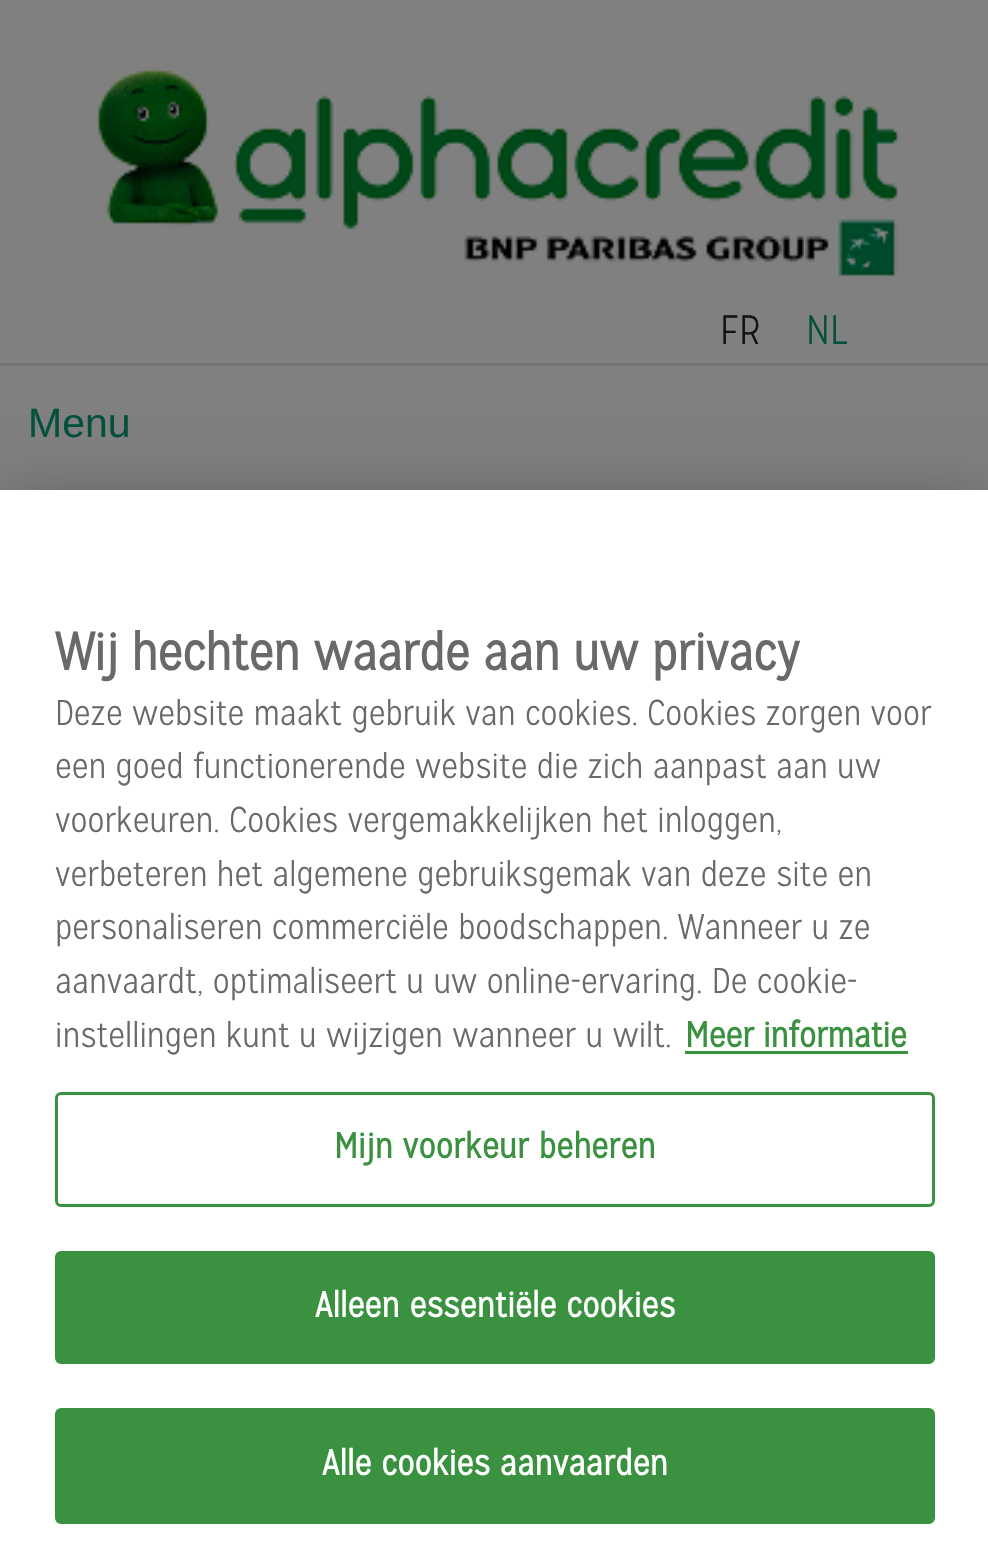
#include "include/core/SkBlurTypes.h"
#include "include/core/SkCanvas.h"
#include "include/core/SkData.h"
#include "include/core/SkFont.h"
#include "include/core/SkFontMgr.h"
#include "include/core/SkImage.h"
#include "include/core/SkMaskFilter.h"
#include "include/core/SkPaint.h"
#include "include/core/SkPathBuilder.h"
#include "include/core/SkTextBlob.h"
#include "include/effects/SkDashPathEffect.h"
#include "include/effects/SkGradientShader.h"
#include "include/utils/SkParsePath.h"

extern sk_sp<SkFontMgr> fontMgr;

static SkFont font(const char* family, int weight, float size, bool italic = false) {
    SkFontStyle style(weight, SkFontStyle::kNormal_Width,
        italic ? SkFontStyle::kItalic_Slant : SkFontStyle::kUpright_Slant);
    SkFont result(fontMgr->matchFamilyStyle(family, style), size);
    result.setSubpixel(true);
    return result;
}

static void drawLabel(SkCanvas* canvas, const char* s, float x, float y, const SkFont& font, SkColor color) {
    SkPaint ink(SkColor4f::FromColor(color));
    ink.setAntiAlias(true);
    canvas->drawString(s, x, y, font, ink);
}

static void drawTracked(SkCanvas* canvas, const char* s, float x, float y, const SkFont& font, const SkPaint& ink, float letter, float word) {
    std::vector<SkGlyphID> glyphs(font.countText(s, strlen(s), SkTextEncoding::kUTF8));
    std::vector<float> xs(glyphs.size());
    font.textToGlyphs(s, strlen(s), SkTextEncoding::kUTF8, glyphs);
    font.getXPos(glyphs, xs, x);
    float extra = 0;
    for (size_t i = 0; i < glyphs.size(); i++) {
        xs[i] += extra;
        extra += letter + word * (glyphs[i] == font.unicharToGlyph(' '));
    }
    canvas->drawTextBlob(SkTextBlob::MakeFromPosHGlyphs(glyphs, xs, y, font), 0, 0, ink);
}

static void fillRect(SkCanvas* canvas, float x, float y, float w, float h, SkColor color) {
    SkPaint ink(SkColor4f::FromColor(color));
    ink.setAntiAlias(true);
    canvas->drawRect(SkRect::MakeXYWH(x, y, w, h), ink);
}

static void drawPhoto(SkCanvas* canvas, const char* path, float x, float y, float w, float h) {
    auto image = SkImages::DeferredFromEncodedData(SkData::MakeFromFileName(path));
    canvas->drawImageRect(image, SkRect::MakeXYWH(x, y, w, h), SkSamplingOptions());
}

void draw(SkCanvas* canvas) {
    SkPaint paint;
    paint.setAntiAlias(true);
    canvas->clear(0xFF808080);
    drawPhoto(canvas, "assets/img1.png", 95, 68, 805, 208);
    SkFont font1 = font("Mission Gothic", 300, 41);
    drawLabel(canvas, "FR", 720, 344, font1, 0xFF141414);
    drawLabel(canvas, "NL", 806, 344, font1, 0xFF05503C);
    fillRect(canvas, 0, 363, 988, 3, 0xFF747272);
    SkFont font2 = font("Liberation Sans", 400, 41);
    drawLabel(canvas, "Menu", 28, 437, font2, 0xFF05503C);
    paint.setColor(0x33000000);
    paint.setMaskFilter(SkMaskFilter::MakeBlur(kNormal_SkBlurStyle, 25));
    canvas->drawRect(SkRect::MakeXYWH(0, 490, 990, 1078), paint);
    paint.setMaskFilter(nullptr);
    fillRect(canvas, 0, 490, 988, 1076, 0xFFFFFFFF);
    SkFont font3 = font("Mission Gothic", 700, 52.75f);
    drawLabel(canvas, "Wij hechten waarde aan uw privacy", 55, 670, font3, 0xFF696969);
    SkFont font4 = font("Mission Gothic", 300, 35.75f);
    drawLabel(canvas, "Deze website maakt gebruik van cookies. Cookies zorgen voor", 55, 725, font4, 0xFF696969);
    drawLabel(canvas, "een goed functionerende website die zich aanpast aan uw", 55, 778, font4, 0xFF696969);
    drawLabel(canvas, "voorkeuren. Cookies vergemakkelijken het inloggen,", 55, 832, font4, 0xFF696969);
    drawLabel(canvas, "verbeteren het algemene gebruiksgemak van deze site en", 55, 886, font4, 0xFF696969);
    drawLabel(canvas, "personaliseren commerciële boodschappen. Wanneer u ze", 55, 939, font4, 0xFF696969);
    drawLabel(canvas, "aanvaardt, optimaliseert u uw online-ervaring. De cookie-", 55, 993, font4, 0xFF696969);
    drawLabel(canvas, "instellingen kunt u wijzigen wanneer u wilt.", 55, 1047, font4, 0xFF696969);
    SkFont font5 = font("Mission Gothic", 700, 35.75f);
    drawLabel(canvas, "Meer informatie", 685, 1047, font5, 0xFF3A913F);
    fillRect(canvas, 685, 1051, 223, 3, 0xFF3A913F);
    paint.setStroke(true);
    paint.setStrokeWidth(3);
    paint.setColor(0xFF3A913F);
    canvas->drawRoundRect(SkRect::MakeXYWH(56.5f, 1093.5f, 877, 112), 4.5f, 4.5f, paint);
    paint.setStroke(false);
    drawTracked(canvas, "Mijn voorkeur beheren", 334, 1158, font5, paint, 0.35f, 0);
    canvas->drawRoundRect(SkRect::MakeXYWH(56.5f, 1252.5f, 877, 110), 4.5f, 4.5f, paint);
    paint.setStroke(true);
    canvas->drawRoundRect(SkRect::MakeXYWH(56.5f, 1252.5f, 877, 110), 4.5f, 4.5f, paint);
    paint.setStroke(false);
    paint.setColor(0xFFFFFFFF);
    drawTracked(canvas, "Alleen essentiële cookies", 315, 1317, font5, paint, 0.35f, 0);
    paint.setColor(0xFF3A913F);
    canvas->drawRoundRect(SkRect::MakeXYWH(56.5f, 1409.5f, 877, 113), 4.5f, 4.5f, paint);
    paint.setStroke(true);
    canvas->drawRoundRect(SkRect::MakeXYWH(56.5f, 1409.5f, 877, 113), 4.5f, 4.5f, paint);
    paint.setStroke(false);
    paint.setColor(0xFFFFFFFF);
    drawTracked(canvas, "Alle cookies aanvaarden", 322, 1475, font5, paint, 0.35f, 0);
}
